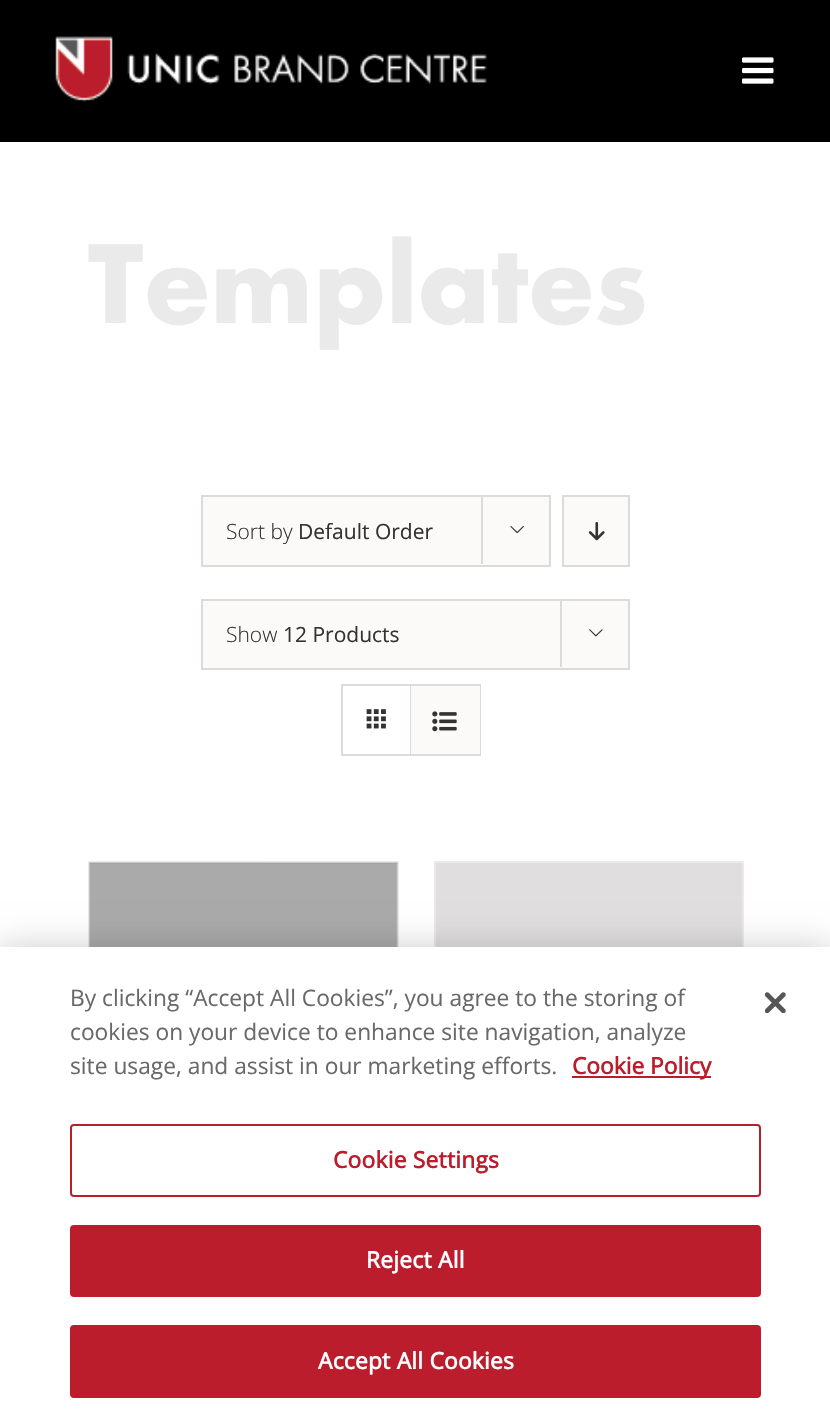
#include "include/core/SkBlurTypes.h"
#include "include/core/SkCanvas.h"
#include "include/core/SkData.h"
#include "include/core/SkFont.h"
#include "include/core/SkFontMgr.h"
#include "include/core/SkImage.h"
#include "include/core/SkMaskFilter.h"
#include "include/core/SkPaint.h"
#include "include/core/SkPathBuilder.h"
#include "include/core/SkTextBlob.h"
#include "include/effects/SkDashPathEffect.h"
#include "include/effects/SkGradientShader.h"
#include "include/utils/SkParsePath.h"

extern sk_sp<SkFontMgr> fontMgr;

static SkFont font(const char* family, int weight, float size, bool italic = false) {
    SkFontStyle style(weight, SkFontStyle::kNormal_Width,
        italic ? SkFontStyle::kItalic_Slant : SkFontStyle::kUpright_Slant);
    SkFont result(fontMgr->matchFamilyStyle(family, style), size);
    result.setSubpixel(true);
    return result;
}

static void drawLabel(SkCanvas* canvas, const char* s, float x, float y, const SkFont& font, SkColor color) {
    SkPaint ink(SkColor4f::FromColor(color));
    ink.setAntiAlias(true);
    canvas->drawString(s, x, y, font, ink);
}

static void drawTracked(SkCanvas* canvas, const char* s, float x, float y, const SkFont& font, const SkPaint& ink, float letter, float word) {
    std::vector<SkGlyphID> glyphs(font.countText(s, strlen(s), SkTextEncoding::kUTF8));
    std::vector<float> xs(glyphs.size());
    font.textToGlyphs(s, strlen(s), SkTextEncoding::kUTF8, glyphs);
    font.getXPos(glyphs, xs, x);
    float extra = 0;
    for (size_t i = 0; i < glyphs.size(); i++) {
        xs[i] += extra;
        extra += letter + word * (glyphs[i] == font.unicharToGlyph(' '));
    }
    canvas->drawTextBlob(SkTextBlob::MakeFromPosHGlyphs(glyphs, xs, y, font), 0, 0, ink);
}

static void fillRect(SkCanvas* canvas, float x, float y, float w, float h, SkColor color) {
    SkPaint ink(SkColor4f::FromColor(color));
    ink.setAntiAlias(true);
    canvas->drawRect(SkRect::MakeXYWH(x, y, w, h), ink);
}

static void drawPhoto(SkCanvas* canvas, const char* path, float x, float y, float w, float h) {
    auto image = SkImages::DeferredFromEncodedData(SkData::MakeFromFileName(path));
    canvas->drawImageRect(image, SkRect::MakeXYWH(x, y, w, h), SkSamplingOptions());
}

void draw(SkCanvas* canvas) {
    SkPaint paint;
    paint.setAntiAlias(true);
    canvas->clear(0xFFFFFFFF);
    fillRect(canvas, 0, 0, 830, 142, 0xFF000000);
    drawPhoto(canvas, "assets/img1.png", 55, 36, 432, 66);
    drawPhoto(canvas, "assets/img2.png", 742, 57, 32, 27);
    SkFont font1 = font("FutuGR", 700, 117.75f);
    paint.setColor(0xFFEAEAEA);
    drawTracked(canvas, "Templates", 88, 323, font1, paint, -1.25f, 0);
    paint.setColor(0xFFFBFAF9);
    canvas->drawRect(SkRect::MakeXYWH(202, 496, 348, 70), paint);
    paint.setStroke(true);
    paint.setStrokeWidth(2);
    paint.setColor(0xFFDBDBDB);
    canvas->drawRect(SkRect::MakeXYWH(202, 496, 348, 70), paint);
    SkFont font2 = font("Open Sans", 300, 21);
    drawLabel(canvas, "Sort by", 226, 539, font2, 0xFF333333);
    SkFont font3 = font("Open Sans", 400, 21);
    drawLabel(canvas, "Default Order", 298, 539, font3, 0xFF333333);
    fillRect(canvas, 481, 495, 2, 69, 0xFFDBDBDB);
    drawPhoto(canvas, "assets/img3.png", 510, 526, 14, 8);
    paint.setStroke(false);
    paint.setColor(0xFFFBFAF9);
    canvas->drawRect(SkRect::MakeXYWH(563, 496, 66, 70), paint);
    paint.setStroke(true);
    paint.setColor(0xFFDBDBDB);
    canvas->drawRect(SkRect::MakeXYWH(563, 496, 66, 70), paint);
    drawPhoto(canvas, "assets/img4.png", 588, 522, 17, 19);
    paint.setStroke(false);
    paint.setColor(0xFFFBFAF9);
    canvas->drawRect(SkRect::MakeXYWH(202, 600, 427, 69), paint);
    paint.setStroke(true);
    paint.setColor(0xFFDBDBDB);
    canvas->drawRect(SkRect::MakeXYWH(202, 600, 427, 69), paint);
    drawLabel(canvas, "Show", 226, 642, font2, 0xFF333333);
    drawLabel(canvas, "12 Products", 283, 642, font3, 0xFF333333);
    fillRect(canvas, 560, 599, 2, 68, 0xFFDBDBDB);
    drawPhoto(canvas, "assets/img5.png", 589, 629, 14, 8);
    canvas->drawRect(SkRect::MakeXYWH(342, 685, 138, 70), paint);
    fillRect(canvas, 410, 686, 1, 68, 0xFFDBDBDB);
    drawPhoto(canvas, "assets/img6.png", 366, 709, 20, 20);
    fillRect(canvas, 411, 686, 69, 68, 0xFFFBFAF9);
    drawPhoto(canvas, "assets/img7.png", 432, 711, 25, 21);
    fillRect(canvas, 88, 861, 311, 2, 0xFFEBEAEA);
    fillRect(canvas, 397, 861, 2, 86, 0xFFEBEAEA);
    fillRect(canvas, 88, 861, 2, 86, 0xFFEBEAEA);
    drawPhoto(canvas, "assets/img8.png", 89, 862, 309, 85);
    fillRect(canvas, 434, 861, 310, 2, 0xFFEBEAEA);
    fillRect(canvas, 742, 861, 2, 86, 0xFFEBEAEA);
    fillRect(canvas, 434, 861, 2, 86, 0xFFEBEAEA);
    fillRect(canvas, 436, 863, 306, 84, 0xFFE0DEDE);
    paint.setStroke(false);
    paint.setColor(0x33000000);
    paint.setMaskFilter(SkMaskFilter::MakeBlur(kNormal_SkBlurStyle, 16));
    canvas->drawRect(SkRect::MakeXYWH(0, 947, 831, 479), paint);
    paint.setMaskFilter(nullptr);
    fillRect(canvas, 0, 947, 830, 478, 0xFFFFFFFF);
    SkFont font4 = font("Open Sans", 400, 22.75f);
    drawLabel(canvas, "By clicking “Accept All Cookies”, you agree to the storing of", 70, 1006, font4, 0xFF696969);
    drawLabel(canvas, "cookies on your device to enhance site navigation, analyze", 70, 1040, font4, 0xFF696969);
    drawLabel(canvas, "site usage, and assist in our marketing efforts.", 70, 1074, font4, 0xFF696969);
    fillRect(canvas, 572, 1076, 139, 2, 0xFFBB1D2C);
    SkFont font5 = font("Open Sans", 700, 22.75f);
    drawLabel(canvas, "Cookie Policy", 572, 1074, font5, 0xFFBB1D2C);
    paint.setStroke(true);
    paint.setColor(0xFFBB1D2C);
    canvas->drawRoundRect(SkRect::MakeXYWH(71, 1125, 689, 71), 3, 3, paint);
    paint.setStroke(false);
    drawTracked(canvas, "Cookie Settings", 333, 1168, font5, paint, 0.25f, 0);
    canvas->drawRoundRect(SkRect::MakeXYWH(71, 1226, 689, 70), 3, 3, paint);
    paint.setStroke(true);
    canvas->drawRoundRect(SkRect::MakeXYWH(71, 1226, 689, 70), 3, 3, paint);
    paint.setStroke(false);
    paint.setColor(0xFFFFFFFF);
    drawTracked(canvas, "Reject All", 366, 1268, font5, paint, 0.25f, 0);
    paint.setColor(0xFFBB1D2C);
    canvas->drawRoundRect(SkRect::MakeXYWH(71, 1326, 689, 71), 3, 3, paint);
    paint.setStroke(true);
    canvas->drawRoundRect(SkRect::MakeXYWH(71, 1326, 689, 71), 3, 3, paint);
    paint.setStroke(false);
    paint.setColor(0xFFFFFFFF);
    drawTracked(canvas, "Accept All Cookies", 318, 1369, font5, paint, 0.25f, 0);
    drawPhoto(canvas, "assets/img9.png", 765, 992, 21, 21);
}
